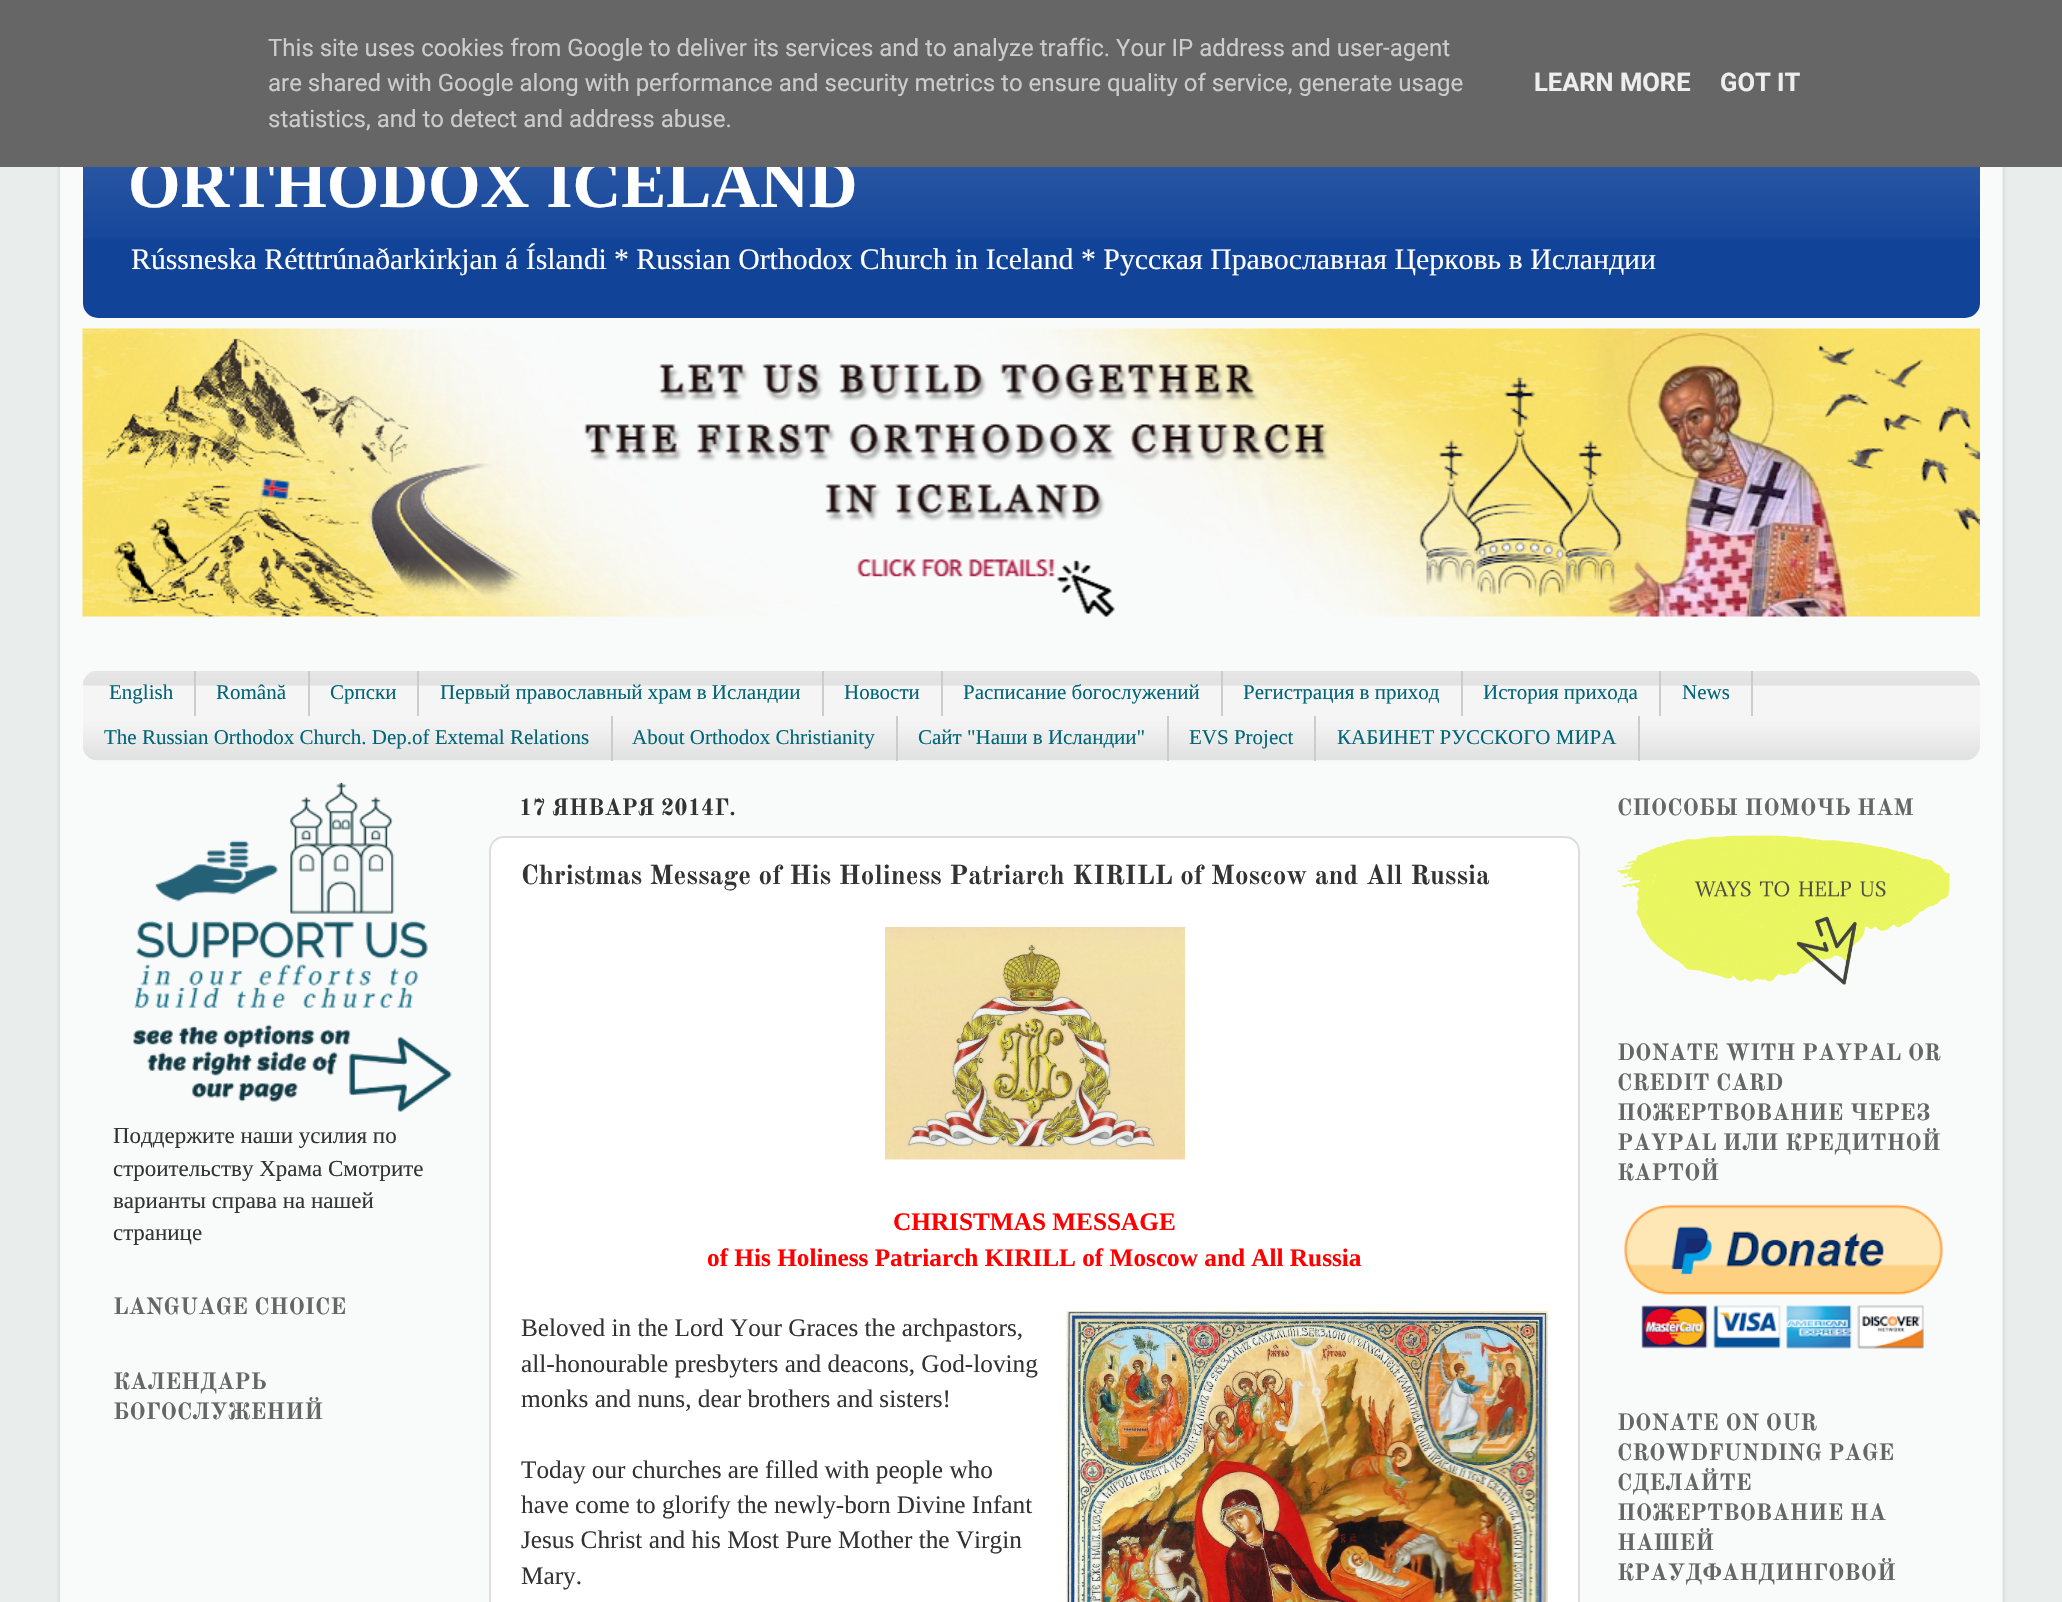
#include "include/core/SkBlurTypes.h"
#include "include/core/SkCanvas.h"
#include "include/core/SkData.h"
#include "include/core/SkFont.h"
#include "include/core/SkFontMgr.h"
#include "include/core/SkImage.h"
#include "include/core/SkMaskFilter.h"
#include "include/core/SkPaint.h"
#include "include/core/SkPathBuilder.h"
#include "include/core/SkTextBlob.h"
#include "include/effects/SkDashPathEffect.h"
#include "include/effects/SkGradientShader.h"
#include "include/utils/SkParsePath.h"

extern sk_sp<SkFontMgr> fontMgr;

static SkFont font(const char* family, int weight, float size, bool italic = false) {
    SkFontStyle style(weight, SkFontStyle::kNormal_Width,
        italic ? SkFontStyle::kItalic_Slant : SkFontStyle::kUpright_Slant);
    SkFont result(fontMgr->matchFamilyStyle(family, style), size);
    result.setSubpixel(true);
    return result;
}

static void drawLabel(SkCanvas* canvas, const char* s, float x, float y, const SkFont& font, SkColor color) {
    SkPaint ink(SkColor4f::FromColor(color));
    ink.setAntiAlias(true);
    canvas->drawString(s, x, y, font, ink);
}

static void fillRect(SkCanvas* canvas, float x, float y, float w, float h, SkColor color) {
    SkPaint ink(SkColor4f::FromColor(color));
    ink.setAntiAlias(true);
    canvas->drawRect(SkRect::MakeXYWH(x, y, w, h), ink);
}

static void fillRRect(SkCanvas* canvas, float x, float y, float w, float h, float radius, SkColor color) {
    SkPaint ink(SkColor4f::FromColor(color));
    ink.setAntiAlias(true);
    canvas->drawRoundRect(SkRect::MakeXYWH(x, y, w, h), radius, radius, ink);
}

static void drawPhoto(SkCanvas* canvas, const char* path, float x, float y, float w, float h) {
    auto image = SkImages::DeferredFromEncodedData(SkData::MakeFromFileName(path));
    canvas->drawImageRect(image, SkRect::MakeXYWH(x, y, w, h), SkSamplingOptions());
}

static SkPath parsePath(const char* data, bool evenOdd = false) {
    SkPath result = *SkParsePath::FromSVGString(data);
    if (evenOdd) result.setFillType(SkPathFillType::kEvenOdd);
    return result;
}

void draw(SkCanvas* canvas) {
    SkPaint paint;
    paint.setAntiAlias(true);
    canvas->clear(0xFFE9EDEC);
    canvas->save();
    canvas->clipPath(parsePath("M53 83H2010V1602H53ZM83 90H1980C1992.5 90 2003 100.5 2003 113V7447C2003 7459.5 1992.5 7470 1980 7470H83C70.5 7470 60 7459.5 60 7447V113C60 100.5 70.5 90 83 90Z", true), true);
    paint.setColor(0x26000000);
    paint.setMaskFilter(SkMaskFilter::MakeBlur(kNormal_SkBlurStyle, 2));
    canvas->drawRoundRect(SkRect::MakeXYWH(60, 90, 1943, 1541), 23, 23, paint);
    paint.setMaskFilter(nullptr);
    canvas->restore();
    drawPhoto(canvas, "assets/img1.png", 60, 167, 1943, 1435);
    fillRRect(canvas, 83, 113, 1897, 205, 15, 0xFF114399);
    drawPhoto(canvas, "assets/img2.png", 83, 167, 1897, 71);
    SkFont font1 = font("Liberation Serif", 700, 67.5f);
    drawLabel(canvas, "ORTHODOX ICELAND", 128, 207, font1, 0xFFFFFFFF);
    fillRect(canvas, 0, 0, 2062, 167, 0xFF666666);
    SkFont font2 = font("Roboto", 400, 24);
    drawLabel(canvas, "This site uses cookies from Google to deliver its services and to analyze traffic. Your IP address and user-agent", 268, 56, font2, 0xFFCCCCCC);
    drawLabel(canvas, "are shared with Google along with performance and security metrics to ensure quality of service, generate usage", 268, 91, font2, 0xFFCCCCCC);
    drawLabel(canvas, "statistics, and to detect and address abuse.", 268, 127, font2, 0xFFCCCCCC);
    SkFont font3 = font("Roboto", 700, 25.5f);
    drawLabel(canvas, "LEARN MORE", 1534, 91, font3, 0xFFEEEEEE);
    drawLabel(canvas, "GOT IT", 1720, 91, font3, 0xFFEEEEEE);
    SkFont font4 = font("Liberation Serif", 400, 29.8f);
    drawLabel(canvas, "Rússneska Rétttrúnaðarkirkjan á Íslandi", 131, 269, font4, 0xFFFFFFFF);
    drawLabel(canvas, "* Russian Orthodox Church in Iceland", 614, 269, font4, 0xFFFFFFFF);
    drawLabel(canvas, "* Русская Православная Церковь в Исландии", 1081, 269, font4, 0xFFFFFFFF);
    drawPhoto(canvas, "assets/img3.png", 82, 328, 1898, 289);
    fillRRect(canvas, 83, 671, 1897, 90, 15, 0xFFF5F5F5);
    drawPhoto(canvas, "assets/img4.png", 83, 671, 1897, 89);
    fillRect(canvas, 194, 671, 2, 45, 0xFFCCCCCC);
    SkFont font5 = font("Liberation Serif", 400, 21);
    drawLabel(canvas, "English", 109, 699, font5, 0xFF006577);
    fillRect(canvas, 308, 671, 2, 45, 0xFFCCCCCC);
    drawLabel(canvas, "Română", 216, 699, font5, 0xFF006577);
    fillRect(canvas, 417, 671, 2, 45, 0xFFCCCCCC);
    drawLabel(canvas, "Српски", 330, 699, font5, 0xFF006577);
    fillRect(canvas, 822, 671, 2, 45, 0xFFCCCCCC);
    drawLabel(canvas, "Первый православный храм в Исландии", 440, 699, font5, 0xFF006577);
    fillRect(canvas, 941, 671, 2, 45, 0xFFCCCCCC);
    drawLabel(canvas, "Новости", 844, 699, font5, 0xFF006577);
    fillRect(canvas, 1221, 671, 2, 45, 0xFFCCCCCC);
    drawLabel(canvas, "Расписание богослужений", 963, 699, font5, 0xFF006577);
    fillRect(canvas, 1461, 671, 2, 45, 0xFFCCCCCC);
    drawLabel(canvas, "Регистрация в приход", 1243, 699, font5, 0xFF006577);
    fillRect(canvas, 1659, 671, 2, 45, 0xFFCCCCCC);
    drawLabel(canvas, "История прихода", 1483, 699, font5, 0xFF006577);
    fillRect(canvas, 1751, 671, 2, 45, 0xFFCCCCCC);
    drawLabel(canvas, "News", 1682, 699, font5, 0xFF006577);
    fillRect(canvas, 611, 716, 2, 45, 0xFFCCCCCC);
    drawLabel(canvas, "The Russian Orthodox Church. Dep.of Extemal Relations", 104, 744, font5, 0xFF006577);
    fillRect(canvas, 896, 716, 2, 45, 0xFFCCCCCC);
    drawLabel(canvas, "About Orthodox Christianity", 632, 744, font5, 0xFF006577);
    fillRect(canvas, 1167, 716, 2, 45, 0xFFCCCCCC);
    drawLabel(canvas, "Сайт \"Наши в Исландии\"", 918, 744, font5, 0xFF006577);
    fillRect(canvas, 1314, 716, 2, 45, 0xFFCCCCCC);
    drawLabel(canvas, "EVS Project", 1189, 744, font5, 0xFF006577);
    fillRect(canvas, 1638, 716, 2, 45, 0xFFCCCCCC);
    drawLabel(canvas, "КАБИНЕТ РУССКОГО МИРА", 1337, 744, font5, 0xFF006577);
    drawPhoto(canvas, "assets/img5.png", 133, 783, 319, 329);
    SkFont font6 = font("Liberation Serif", 400, 23);
    drawLabel(canvas, "Поддержите наши усилия по", 113, 1143, font6, 0xFF333333);
    drawLabel(canvas, "строительству Храма Смотрите", 113, 1176, font6, 0xFF333333);
    drawLabel(canvas, "варианты справа на нашей", 113, 1208, font6, 0xFF333333);
    drawLabel(canvas, "странице", 113, 1240, font6, 0xFF333333);
    SkFont font7 = font("Old Standard TT", 700, 23);
    drawLabel(canvas, "LANGUAGE CHOICE", 113, 1314, font7, 0xFF666666);
    drawLabel(canvas, "КАЛЕНДАРЬ", 113, 1389, font7, 0xFF666666);
    drawLabel(canvas, "БОГОСЛУЖЕНИЙ", 113, 1419, font7, 0xFF666666);
    drawLabel(canvas, "17 ЯНВАРЯ 2014 Г.", 519, 815, font7, 0xFF333333);
    paint.setColor(0xFFFFFFFF);
    canvas->drawRoundRect(SkRect::MakeXYWH(490, 837, 1089, 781), 14, 14, paint);
    paint.setStroke(true);
    paint.setStrokeWidth(2);
    paint.setColor(0xFFDDDDDD);
    canvas->drawRoundRect(SkRect::MakeXYWH(490, 837, 1089, 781), 14, 14, paint);
    SkFont font8 = font("Old Standard TT", 700, 27);
    drawLabel(canvas, "Christmas Message of His Holiness Patriarch KIRILL of Moscow and All Russia", 521, 884, font8, 0xFF333333);
    drawPhoto(canvas, "assets/img6.png", 885, 927, 300, 233);
    SkFont font9 = font("Liberation Serif", 700, 25.25f);
    drawLabel(canvas, "CHRISTMAS MESSAGE", 893, 1230, font9, 0xFFFF0000);
    drawLabel(canvas, "of His Holiness Patriarch KIRILL of Moscow and All Russia", 707, 1266, font9, 0xFFFF0000);
    SkFont font10 = font("Liberation Serif", 400, 25.25f);
    drawLabel(canvas, "Beloved in the Lord Your Graces the archpastors,", 521, 1336, font10, 0xFF333333);
    drawPhoto(canvas, "assets/img7.png", 1066, 1311, 482, 291);
    drawLabel(canvas, "all-honourable presbyters and deacons, God-loving", 521, 1372, font10, 0xFF333333);
    drawLabel(canvas, "monks and nuns, dear brothers and sisters!", 521, 1407, font10, 0xFF333333);
    drawLabel(canvas, "Today our churches are filled with people who", 521, 1478, font10, 0xFF333333);
    drawLabel(canvas, "have come to glorify the newly-born Divine Infant", 521, 1513, font10, 0xFF333333);
    drawLabel(canvas, "Jesus Christ and his Most Pure Mother the Virgin", 521, 1548, font10, 0xFF333333);
    drawLabel(canvas, "Mary.", 521, 1584, font10, 0xFF333333);
    drawLabel(canvas, "СПОСОБЫ ПОМОЧЬ НАМ", 1617, 815, font7, 0xFF666666);
    drawPhoto(canvas, "assets/img8.png", 1617, 835, 333, 150);
    drawLabel(canvas, "DONATE WITH PAYPAL OR", 1617, 1060, font7, 0xFF666666);
    drawLabel(canvas, "CREDIT CARD", 1617, 1090, font7, 0xFF666666);
    drawLabel(canvas, "ПОЖЕРТВОВАНИЕ ЧЕРЕЗ", 1617, 1120, font7, 0xFF666666);
    drawLabel(canvas, "PAYPAL ИЛИ КРЕДИТНОЙ", 1617, 1150, font7, 0xFF666666);
    drawLabel(canvas, "КАРТОЙ", 1617, 1180, font7, 0xFF666666);
    drawPhoto(canvas, "assets/img9.png", 1624, 1204, 320, 145);
    drawLabel(canvas, "DONATE ON OUR", 1617, 1430, font7, 0xFF666666);
    drawLabel(canvas, "CROWDFUNDING PAGE", 1617, 1460, font7, 0xFF666666);
    drawLabel(canvas, "СДЕЛАЙТЕ", 1617, 1490, font7, 0xFF666666);
    drawLabel(canvas, "ПОЖЕРТВОВАНИЕ НА", 1617, 1520, font7, 0xFF666666);
    drawLabel(canvas, "НАШЕЙ", 1617, 1550, font7, 0xFF666666);
    drawLabel(canvas, "КРАУДФАНДИНГОВОЙ", 1617, 1580, font7, 0xFF666666);
}
